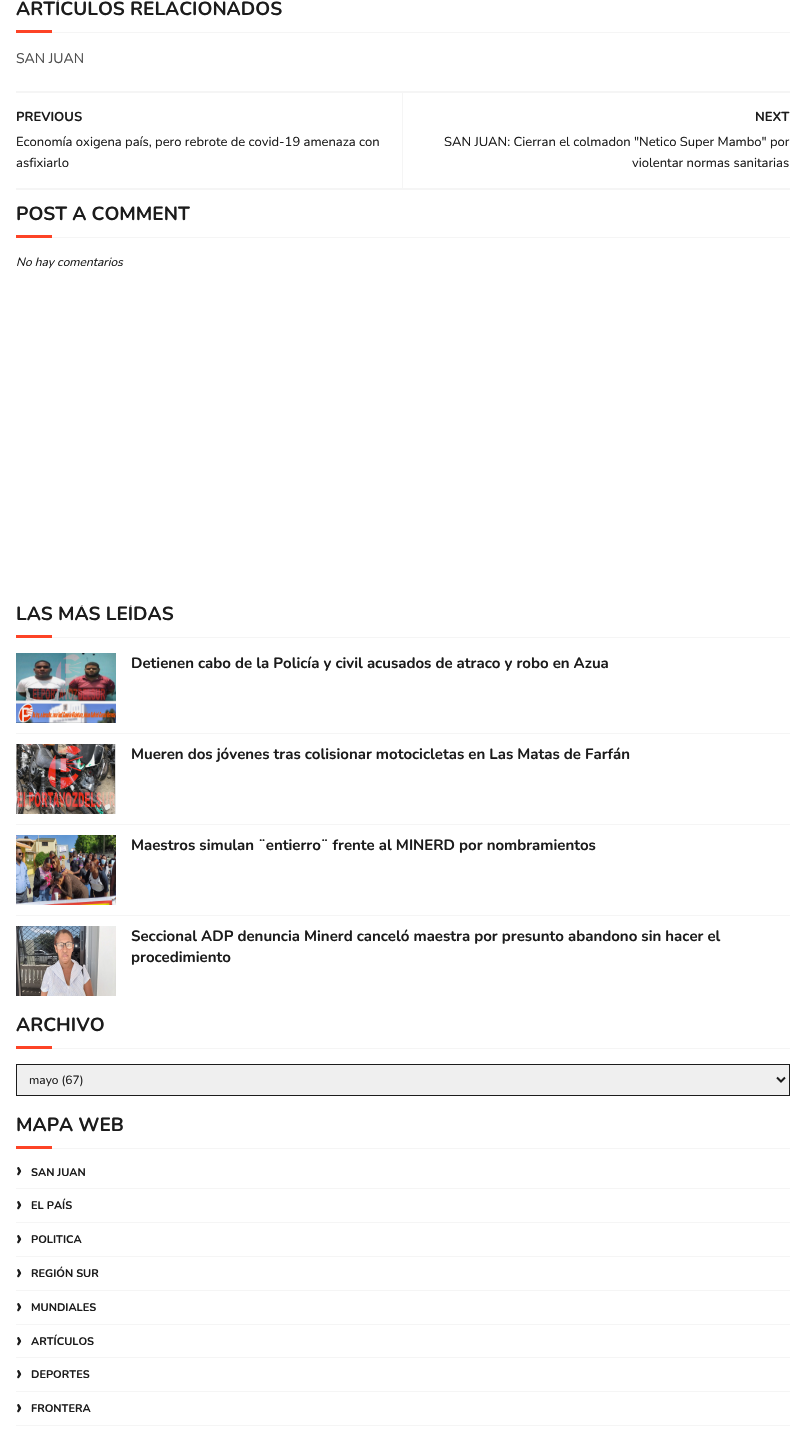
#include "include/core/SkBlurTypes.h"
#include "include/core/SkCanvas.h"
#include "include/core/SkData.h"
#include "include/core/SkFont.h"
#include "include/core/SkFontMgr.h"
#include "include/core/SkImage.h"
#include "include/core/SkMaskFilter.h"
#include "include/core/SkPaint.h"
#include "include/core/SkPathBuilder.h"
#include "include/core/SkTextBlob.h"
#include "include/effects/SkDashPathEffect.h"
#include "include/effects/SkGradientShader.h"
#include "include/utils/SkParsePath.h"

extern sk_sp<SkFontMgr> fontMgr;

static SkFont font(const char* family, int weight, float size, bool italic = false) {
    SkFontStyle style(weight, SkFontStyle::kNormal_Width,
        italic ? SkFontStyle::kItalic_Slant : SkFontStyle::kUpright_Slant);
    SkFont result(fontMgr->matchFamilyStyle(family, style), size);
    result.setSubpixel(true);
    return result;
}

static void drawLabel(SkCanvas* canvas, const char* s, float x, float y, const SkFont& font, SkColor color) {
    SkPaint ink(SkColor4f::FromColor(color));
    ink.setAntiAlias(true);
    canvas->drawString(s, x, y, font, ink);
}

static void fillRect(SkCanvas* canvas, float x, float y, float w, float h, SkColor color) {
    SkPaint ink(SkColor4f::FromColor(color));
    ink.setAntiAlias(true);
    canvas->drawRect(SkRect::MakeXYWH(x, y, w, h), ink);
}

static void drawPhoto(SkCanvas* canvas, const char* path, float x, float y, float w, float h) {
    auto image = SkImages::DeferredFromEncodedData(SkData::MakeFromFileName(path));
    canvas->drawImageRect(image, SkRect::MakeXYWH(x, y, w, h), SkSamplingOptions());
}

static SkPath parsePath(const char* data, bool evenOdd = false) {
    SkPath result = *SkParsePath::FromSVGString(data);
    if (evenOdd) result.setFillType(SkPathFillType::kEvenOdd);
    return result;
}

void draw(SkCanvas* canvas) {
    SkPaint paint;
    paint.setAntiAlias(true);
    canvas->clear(0xFFFFFFFF);
    fillRect(canvas, 52, 32, 738, 1, 0xFFF5F5F5);
    SkFont font1 = font("Nunito", 700, 19);
    drawLabel(canvas, "ARTÍCULOS RELACIONADOS", 16, 15, font1, 0xFF1C1C1C);
    fillRect(canvas, 16, 30, 36, 3, 0xFFFD4326);
    SkFont font2 = font("Nunito", 400, 14);
    drawLabel(canvas, "SAN JUAN", 16, 63, font2, 0xFF4F4F4F);
    fillRect(canvas, 16, 91, 774, 2, 0xFFF5F5F5);
    fillRect(canvas, 16, 188, 774, 2, 0xFFF5F5F5);
    fillRect(canvas, 402, 93, 1, 95, 0xFFF5F5F5);
    SkFont font3 = font("Nunito", 700, 13);
    drawLabel(canvas, "PREVIOUS", 16, 121, font3, 0xFF1C1C1C);
    SkFont font4 = font("Nunito", 400, 13);
    drawLabel(canvas, "Economía oxigena país, pero rebrote de covid-19 amenaza con", 16, 146, font4, 0xFF1C1C1C);
    drawLabel(canvas, "asfixiarlo", 16, 167, font4, 0xFF1C1C1C);
    drawLabel(canvas, "NEXT", 755, 121, font3, 0xFF1C1C1C);
    drawLabel(canvas, "SAN JUAN: Cierran el colmadon \"Netico Super Mambo\" por", 444, 146, font4, 0xFF1C1C1C);
    drawLabel(canvas, "violentar normas sanitarias", 632, 167, font4, 0xFF1C1C1C);
    fillRect(canvas, 52, 237, 738, 1, 0xFFF5F5F5);
    drawLabel(canvas, "POST A COMMENT", 16, 220, font1, 0xFF1C1C1C);
    fillRect(canvas, 16, 235, 36, 3, 0xFFFD4326);
    SkFont font5 = font("Nunito", 400, 12, true);
    drawLabel(canvas, "No hay comentarios", 16, 266, font5, 0xFF1C1C1C);
    fillRect(canvas, 52, 637, 738, 1, 0xFFF5F5F5);
    canvas->save();
    canvas->clipRect(SkRect::MakeXYWH(16, 605, 774, 391));
    drawLabel(canvas, "LAS MÁS LEÍDAS", 16, 620, font1, 0xFF1C1C1C);
    canvas->restore();
    fillRect(canvas, 16, 635, 36, 3, 0xFFFD4326);
    drawPhoto(canvas, "assets/img1.png", 16, 653, 100, 70);
    SkFont font6 = font("Nunito", 700, 15);
    drawLabel(canvas, "Detienen cabo de la Policía y civil acusados de atraco y robo en Azua", 131, 668, font6, 0xFF1C1C1C);
    fillRect(canvas, 16, 733, 774, 1, 0xFFF5F5F5);
    drawPhoto(canvas, "assets/img2.png", 16, 744, 100, 70);
    drawLabel(canvas, "Mueren dos jóvenes tras colisionar motocicletas en Las Matas de Farfán", 131, 759, font6, 0xFF1C1C1C);
    fillRect(canvas, 16, 824, 774, 1, 0xFFF5F5F5);
    drawPhoto(canvas, "assets/img3.png", 16, 835, 100, 70);
    drawLabel(canvas, "Maestros simulan ¨entierro¨ frente al MINERD por nombramientos", 131, 850, font6, 0xFF1C1C1C);
    fillRect(canvas, 16, 915, 774, 1, 0xFFF5F5F5);
    drawPhoto(canvas, "assets/img4.png", 16, 926, 100, 70);
    drawLabel(canvas, "Seccional ADP denuncia Minerd canceló maestra por presunto abandono sin hacer el", 131, 941, font6, 0xFF1C1C1C);
    drawLabel(canvas, "procedimiento", 131, 962, font6, 0xFF1C1C1C);
    fillRect(canvas, 52, 1048, 738, 1, 0xFFF5F5F5);
    drawLabel(canvas, "ARCHIVO", 16, 1031, font1, 0xFF1C1C1C);
    fillRect(canvas, 16, 1046, 36, 3, 0xFFFD4326);
    paint.setColor(0xFFEFEFEF);
    canvas->drawRect(SkRect::MakeXYWH(16.5f, 1064.5f, 773, 31), paint);
    paint.setStroke(true);
    paint.setStrokeWidth(1);
    paint.setColor(0xFF1C1C1C);
    canvas->drawRect(SkRect::MakeXYWH(16.5f, 1064.5f, 773, 31), paint);
    paint.setStrokeWidth(2);
    canvas->drawPath(parsePath("M777 1077.5L781 1081.5L785 1077.5"), paint);
    SkFont font7 = font("Nunito", 400, 12);
    drawLabel(canvas, "mayo (67)", 29, 1084, font7, 0xFF1C1C1C);
    fillRect(canvas, 52, 1148, 738, 1, 0xFFF5F5F5);
    drawLabel(canvas, "MAPA WEB", 16, 1131, font1, 0xFF1C1C1C);
    fillRect(canvas, 16, 1146, 36, 3, 0xFFFD4326);
    fillRect(canvas, 16, 1188, 774, 1, 0xFFF5F5F5);
    SkFont font8 = font("Nunito", 700, 22);
    drawLabel(canvas, "›", 16, 1177, font8, 0xFF1C1C1C);
    SkFont font9 = font("Nunito", 700, 11);
    drawLabel(canvas, "SAN JUAN", 31, 1176, font9, 0xFF1C1C1C);
    fillRect(canvas, 16, 1222, 774, 1, 0xFFF5F5F5);
    drawLabel(canvas, "›", 16, 1211, font8, 0xFF1C1C1C);
    drawLabel(canvas, "EL PAÍS", 31, 1209, font9, 0xFF1C1C1C);
    fillRect(canvas, 16, 1256, 774, 1, 0xFFF5F5F5);
    drawLabel(canvas, "›", 16, 1245, font8, 0xFF1C1C1C);
    drawLabel(canvas, "POLITICA", 31, 1243, font9, 0xFF1C1C1C);
    fillRect(canvas, 16, 1290, 774, 1, 0xFFF5F5F5);
    drawLabel(canvas, "›", 16, 1279, font8, 0xFF1C1C1C);
    drawLabel(canvas, "REGIÓN SUR", 31, 1277, font9, 0xFF1C1C1C);
    fillRect(canvas, 16, 1324, 774, 1, 0xFFF5F5F5);
    drawLabel(canvas, "›", 16, 1313, font8, 0xFF1C1C1C);
    drawLabel(canvas, "MUNDIALES", 31, 1311, font9, 0xFF1C1C1C);
    fillRect(canvas, 16, 1357, 774, 1, 0xFFF5F5F5);
    drawLabel(canvas, "›", 16, 1347, font8, 0xFF1C1C1C);
    drawLabel(canvas, "ARTÍCULOS", 31, 1345, font9, 0xFF1C1C1C);
    fillRect(canvas, 16, 1391, 774, 1, 0xFFF5F5F5);
    drawLabel(canvas, "›", 16, 1380, font8, 0xFF1C1C1C);
    drawLabel(canvas, "DEPORTES", 31, 1378, font9, 0xFF1C1C1C);
    fillRect(canvas, 16, 1425, 774, 1, 0xFFF5F5F5);
    drawLabel(canvas, "›", 16, 1414, font8, 0xFF1C1C1C);
    drawLabel(canvas, "FRONTERA", 31, 1412, font9, 0xFF1C1C1C);
}
